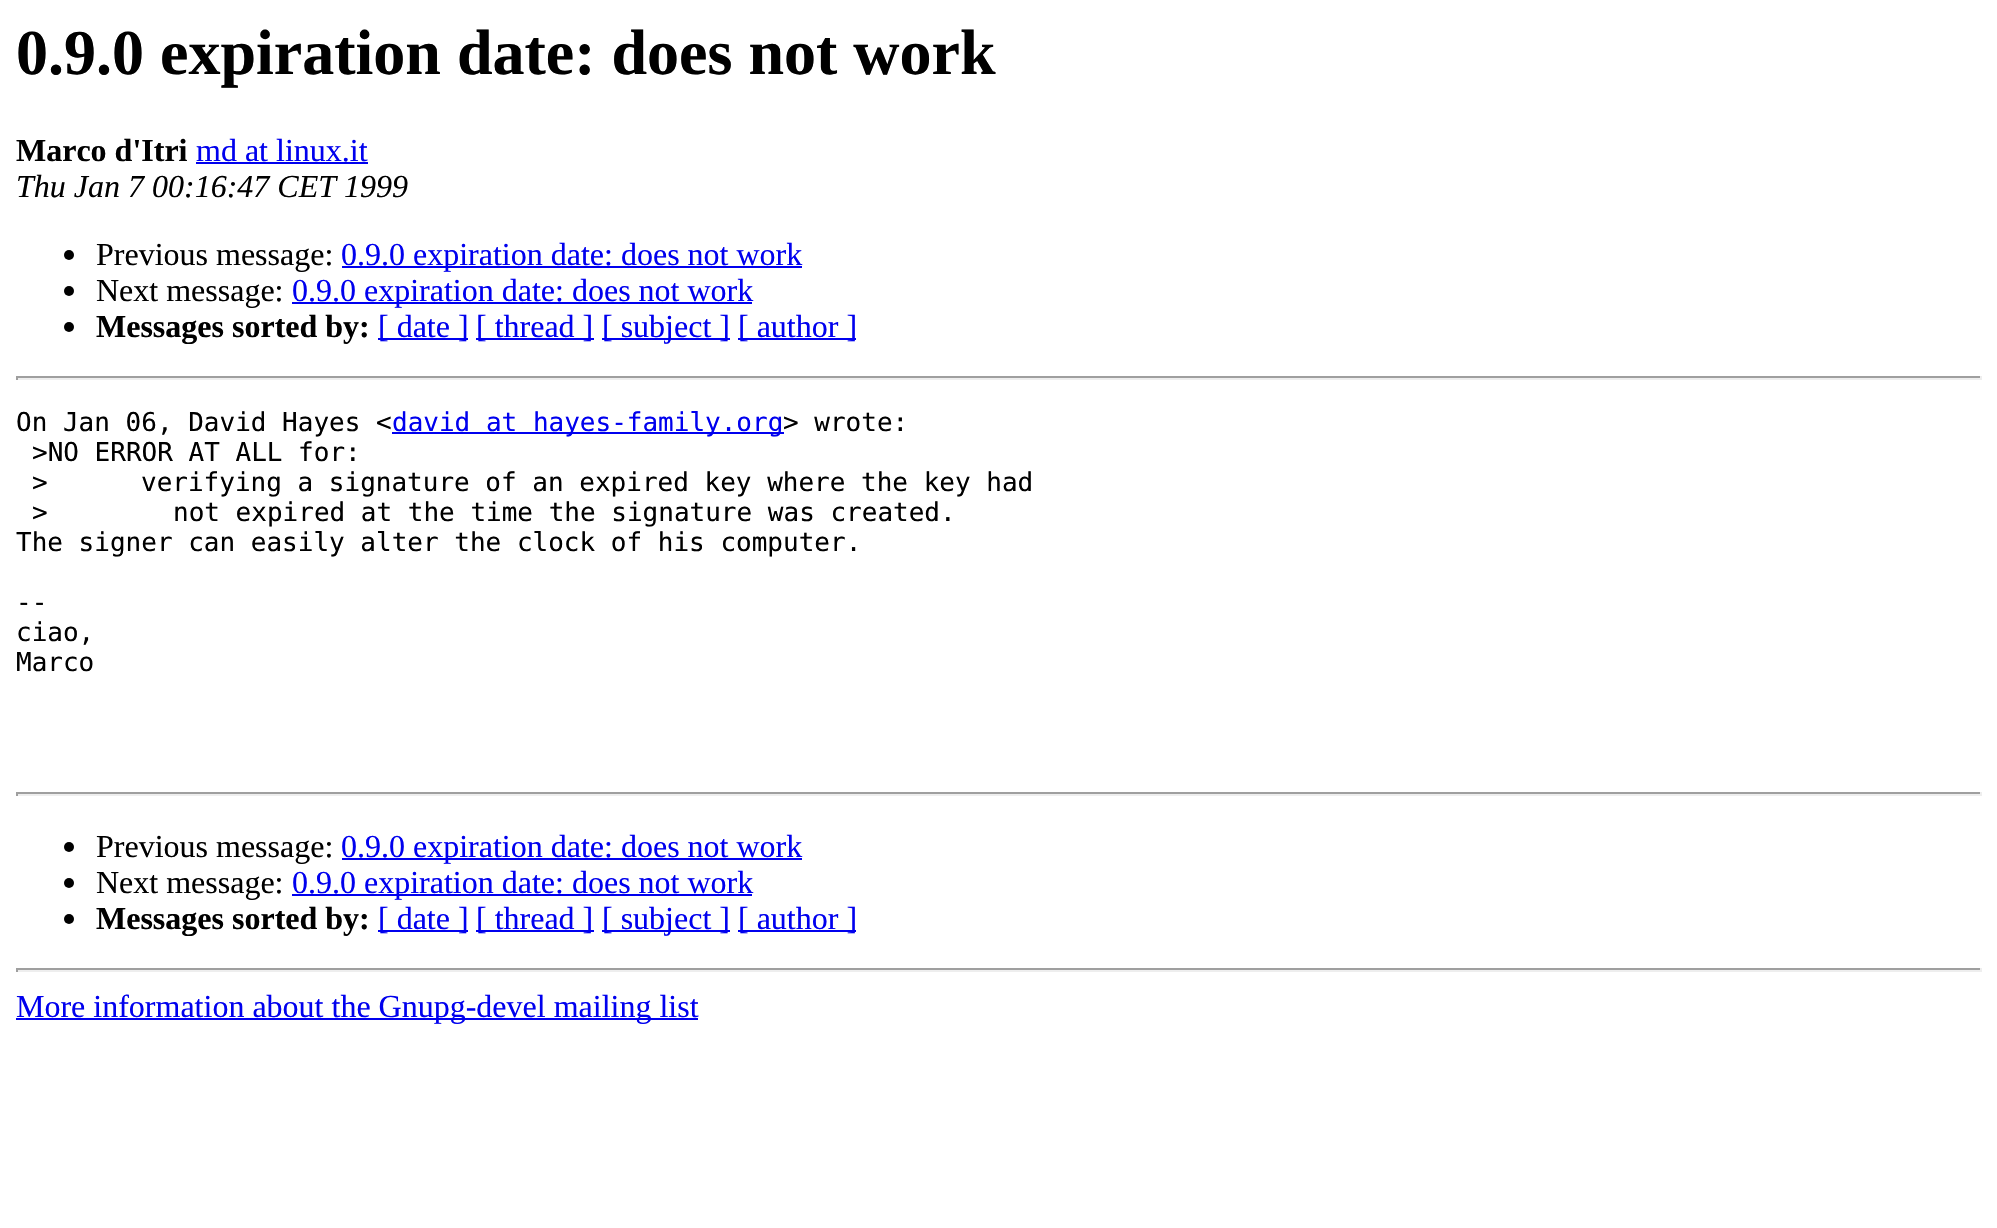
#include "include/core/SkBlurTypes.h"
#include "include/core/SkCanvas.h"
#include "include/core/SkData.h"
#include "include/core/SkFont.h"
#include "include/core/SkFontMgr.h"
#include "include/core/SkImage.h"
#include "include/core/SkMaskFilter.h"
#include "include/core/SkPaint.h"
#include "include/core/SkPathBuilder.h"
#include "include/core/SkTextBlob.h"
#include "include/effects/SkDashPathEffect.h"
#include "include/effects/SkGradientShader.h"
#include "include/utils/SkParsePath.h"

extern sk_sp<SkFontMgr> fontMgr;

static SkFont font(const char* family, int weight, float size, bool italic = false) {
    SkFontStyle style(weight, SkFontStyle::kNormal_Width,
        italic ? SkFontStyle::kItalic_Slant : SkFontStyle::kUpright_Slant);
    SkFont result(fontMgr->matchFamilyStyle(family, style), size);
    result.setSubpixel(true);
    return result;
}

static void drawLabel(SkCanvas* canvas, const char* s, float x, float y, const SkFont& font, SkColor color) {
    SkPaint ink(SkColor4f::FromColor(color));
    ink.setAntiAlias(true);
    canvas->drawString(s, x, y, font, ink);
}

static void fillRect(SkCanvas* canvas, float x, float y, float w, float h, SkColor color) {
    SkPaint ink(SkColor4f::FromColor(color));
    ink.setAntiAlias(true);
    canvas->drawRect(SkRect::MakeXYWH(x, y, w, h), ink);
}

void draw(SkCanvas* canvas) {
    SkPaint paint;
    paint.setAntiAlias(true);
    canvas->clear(0xFFFFFFFF);
    SkFont font1 = font("Liberation Serif", 700, 64);
    drawLabel(canvas, "0.9.0 expiration date: does not work", 16, 74, font1, 0xFF000000);
    SkFont font2 = font("Liberation Serif", 700, 32);
    drawLabel(canvas, "Marco d'Itri", 16, 161, font2, 0xFF000000);
    SkFont font3 = font("Liberation Serif", 400, 32);
    drawLabel(canvas, "md at linux.it", 196, 161, font3, 0xFF0000EE);
    fillRect(canvas, 196, 162, 172, 2, 0xFF0000EE);
    SkFont font4 = font("Liberation Serif", 400, 32, true);
    drawLabel(canvas, "Thu Jan 7 00:16:47 CET 1999", 16, 197, font4, 0xFF000000);
    paint.setColor(0xFF000000);
    canvas->drawCircle(69, 255, 5, paint);
    drawLabel(canvas, "Previous message:", 96, 265, font3, 0xFF000000);
    fillRect(canvas, 342, 266, 460, 2, 0xFF0000EE);
    drawLabel(canvas, "0.9.0 expiration date: does not work", 341, 265, font3, 0xFF0000EE);
    canvas->drawCircle(69, 291, 5, paint);
    drawLabel(canvas, "Next message:", 96, 301, font3, 0xFF000000);
    fillRect(canvas, 292, 302, 460, 2, 0xFF0000EE);
    drawLabel(canvas, "0.9.0 expiration date: does not work", 292, 301, font3, 0xFF0000EE);
    canvas->drawCircle(69, 327, 5, paint);
    drawLabel(canvas, "Messages sorted by:", 96, 337, font2, 0xFF000000);
    fillRect(canvas, 378, 338, 90, 2, 0xFF0000EE);
    drawLabel(canvas, "[ date ]", 378, 337, font3, 0xFF0000EE);
    fillRect(canvas, 476, 338, 118, 2, 0xFF0000EE);
    drawLabel(canvas, "[ thread ]", 476, 337, font3, 0xFF0000EE);
    fillRect(canvas, 602, 338, 128, 2, 0xFF0000EE);
    drawLabel(canvas, "[ subject ]", 602, 337, font3, 0xFF0000EE);
    fillRect(canvas, 738, 338, 118, 2, 0xFF0000EE);
    drawLabel(canvas, "[ author ]", 738, 337, font3, 0xFF0000EE);
    fillRect(canvas, 16, 376, 1966, 2, 0xFF9F9F9F);
    fillRect(canvas, 1980, 376, 2, 4, 0xFFEEEEEE);
    fillRect(canvas, 16, 378, 1966, 2, 0xFFEEEEEE);
    fillRect(canvas, 16, 376, 2, 4, 0xFF9F9F9F);
    SkFont font5 = font("DejaVu Sans Mono", 400, 26);
    drawLabel(canvas, "On Jan 06, David Hayes <", 16, 431, font5, 0xFF000000);
    fillRect(canvas, 392, 432, 392, 2, 0xFF0000EE);
    drawLabel(canvas, "david at hayes-family.org", 392, 431, font5, 0xFF0000EE);
    drawLabel(canvas, "> wrote:", 783, 431, font5, 0xFF000000);
    drawLabel(canvas, ">NO ERROR AT ALL for:", 32, 461, font5, 0xFF000000);
    drawLabel(canvas, ">", 32, 491, font5, 0xFF000000);
    drawLabel(canvas, "verifying a signature of an expired key where the key had", 141, 491, font5, 0xFF000000);
    drawLabel(canvas, ">", 32, 521, font5, 0xFF000000);
    drawLabel(canvas, "not expired at the time the signature was created.", 173, 521, font5, 0xFF000000);
    drawLabel(canvas, "The signer can easily alter the clock of his computer.", 16, 551, font5, 0xFF000000);
    drawLabel(canvas, "--", 16, 611, font5, 0xFF000000);
    drawLabel(canvas, "ciao,", 16, 641, font5, 0xFF000000);
    drawLabel(canvas, "Marco", 16, 671, font5, 0xFF000000);
    fillRect(canvas, 16, 792, 1966, 2, 0xFF9F9F9F);
    fillRect(canvas, 1980, 792, 2, 4, 0xFFEEEEEE);
    fillRect(canvas, 16, 794, 1966, 2, 0xFFEEEEEE);
    fillRect(canvas, 16, 792, 2, 4, 0xFF9F9F9F);
    canvas->drawCircle(69, 847, 5, paint);
    drawLabel(canvas, "Previous message:", 96, 857, font3, 0xFF000000);
    fillRect(canvas, 342, 858, 460, 2, 0xFF0000EE);
    drawLabel(canvas, "0.9.0 expiration date: does not work", 341, 857, font3, 0xFF0000EE);
    canvas->drawCircle(69, 883, 5, paint);
    drawLabel(canvas, "Next message:", 96, 893, font3, 0xFF000000);
    fillRect(canvas, 292, 894, 460, 2, 0xFF0000EE);
    drawLabel(canvas, "0.9.0 expiration date: does not work", 292, 893, font3, 0xFF0000EE);
    canvas->drawCircle(69, 919, 5, paint);
    drawLabel(canvas, "Messages sorted by:", 96, 929, font2, 0xFF000000);
    fillRect(canvas, 378, 930, 90, 2, 0xFF0000EE);
    drawLabel(canvas, "[ date ]", 378, 929, font3, 0xFF0000EE);
    fillRect(canvas, 476, 930, 118, 2, 0xFF0000EE);
    drawLabel(canvas, "[ thread ]", 476, 929, font3, 0xFF0000EE);
    fillRect(canvas, 602, 930, 128, 2, 0xFF0000EE);
    drawLabel(canvas, "[ subject ]", 602, 929, font3, 0xFF0000EE);
    fillRect(canvas, 738, 930, 118, 2, 0xFF0000EE);
    drawLabel(canvas, "[ author ]", 738, 929, font3, 0xFF0000EE);
    fillRect(canvas, 16, 968, 1966, 2, 0xFF9F9F9F);
    fillRect(canvas, 1980, 968, 2, 4, 0xFFEEEEEE);
    fillRect(canvas, 16, 970, 1966, 2, 0xFFEEEEEE);
    fillRect(canvas, 16, 968, 2, 4, 0xFF9F9F9F);
    fillRect(canvas, 16, 1018, 682, 2, 0xFF0000EE);
    drawLabel(canvas, "More information about the Gnupg-devel mailing list", 16, 1017, font3, 0xFF0000EE);
}
